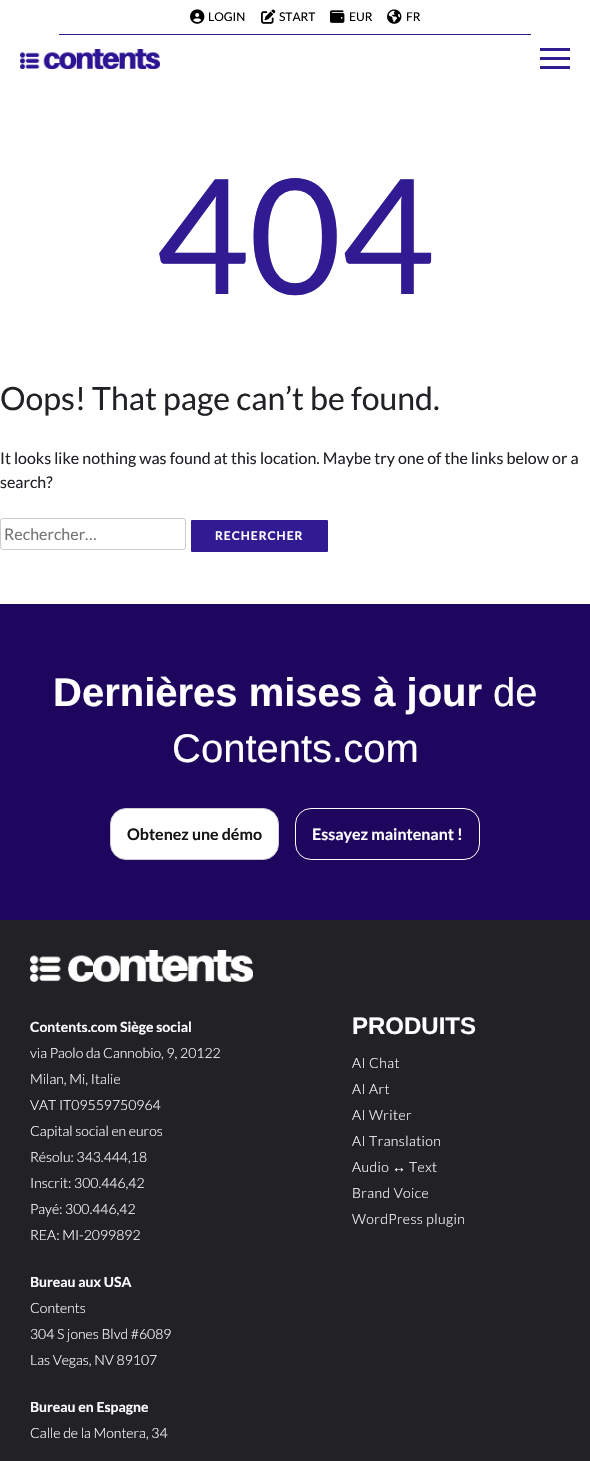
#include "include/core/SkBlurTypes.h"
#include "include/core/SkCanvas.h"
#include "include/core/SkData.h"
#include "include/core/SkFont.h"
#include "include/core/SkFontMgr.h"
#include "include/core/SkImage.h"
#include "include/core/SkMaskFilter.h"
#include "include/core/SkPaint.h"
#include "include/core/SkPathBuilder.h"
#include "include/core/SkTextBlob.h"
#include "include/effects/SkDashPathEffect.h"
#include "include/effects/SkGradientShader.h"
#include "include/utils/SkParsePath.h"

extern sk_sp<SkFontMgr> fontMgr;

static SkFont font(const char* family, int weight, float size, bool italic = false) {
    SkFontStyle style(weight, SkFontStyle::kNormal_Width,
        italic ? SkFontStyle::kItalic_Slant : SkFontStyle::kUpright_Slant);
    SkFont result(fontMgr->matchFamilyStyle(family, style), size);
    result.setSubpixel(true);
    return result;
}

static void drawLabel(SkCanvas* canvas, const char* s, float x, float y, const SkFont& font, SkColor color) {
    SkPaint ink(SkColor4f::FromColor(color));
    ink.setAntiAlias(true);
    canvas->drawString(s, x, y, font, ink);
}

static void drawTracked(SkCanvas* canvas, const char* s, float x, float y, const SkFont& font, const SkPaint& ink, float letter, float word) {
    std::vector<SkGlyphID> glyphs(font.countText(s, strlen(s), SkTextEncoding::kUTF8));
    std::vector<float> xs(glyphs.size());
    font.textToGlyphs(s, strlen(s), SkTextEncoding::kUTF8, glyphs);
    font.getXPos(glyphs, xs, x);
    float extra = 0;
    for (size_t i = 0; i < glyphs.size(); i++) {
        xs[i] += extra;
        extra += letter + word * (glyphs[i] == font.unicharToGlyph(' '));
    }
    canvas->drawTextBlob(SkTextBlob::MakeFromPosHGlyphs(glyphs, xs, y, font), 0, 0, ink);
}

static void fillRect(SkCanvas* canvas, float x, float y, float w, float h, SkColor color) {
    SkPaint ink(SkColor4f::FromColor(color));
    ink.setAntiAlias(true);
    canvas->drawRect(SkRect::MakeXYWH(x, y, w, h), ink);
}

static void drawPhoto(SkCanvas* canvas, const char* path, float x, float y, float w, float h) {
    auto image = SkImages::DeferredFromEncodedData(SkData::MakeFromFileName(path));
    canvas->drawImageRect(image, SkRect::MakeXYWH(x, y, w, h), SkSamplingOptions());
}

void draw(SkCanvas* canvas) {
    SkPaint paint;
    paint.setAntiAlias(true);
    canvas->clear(0xFFFFFFFF);
    fillRect(canvas, 59, 34, 472, 1, 0xFF311B92);
    drawPhoto(canvas, "assets/img1.png", 190, 9, 15, 15);
    SkFont font1 = font("Lato", 400, 12);
    drawLabel(canvas, "LOGIN", 208, 21, font1, 0xFF000000);
    drawPhoto(canvas, "assets/img2.png", 261, 9, 15, 15);
    drawLabel(canvas, "START", 279, 21, font1, 0xFF000000);
    drawPhoto(canvas, "assets/img3.png", 330, 10, 15, 13);
    drawLabel(canvas, "EUR", 349, 21, font1, 0xFF000000);
    drawPhoto(canvas, "assets/img4.png", 387, 9, 15, 15);
    drawLabel(canvas, "FR", 406, 21, font1, 0xFF000000);
    drawPhoto(canvas, "assets/img5.png", 20, 49, 140, 20);
    fillRect(canvas, 540, 48, 30, 3, 0xFF311B92);
    fillRect(canvas, 540, 57, 30, 3, 0xFF311B92);
    fillRect(canvas, 540, 66, 30, 3, 0xFF311B92);
    SkFont font2 = font("Lato", 400, 160);
    drawLabel(canvas, "404", 156, 294, font2, 0xFF311B92);
    SkFont font3 = font("Lato", 400, 32);
    drawLabel(canvas, "Oops! That page can’t be found.", 0, 410, font3, 0xFF212126);
    SkFont font4 = font("Lato", 400, 16);
    drawLabel(canvas, "It looks like nothing was found at this location. Maybe try one of the links below or a", 0, 464, font4, 0xFF212126);
    drawLabel(canvas, "search?", 0, 488, font4, 0xFF212126);
    paint.setStroke(true);
    paint.setStrokeWidth(1);
    paint.setColor(0xFFCCCCCC);
    canvas->drawRoundRect(SkRect::MakeXYWH(0.5f, 518.5f, 185, 31), 2.5f, 2.5f, paint);
    drawLabel(canvas, "Rechercher…", 4, 540, font4, 0xFF757575);
    paint.setStroke(false);
    paint.setColor(0xFF311B92);
    canvas->drawRoundRect(SkRect::MakeXYWH(190, 519, 139, 34), 2, 2, paint);
    paint.setStroke(true);
    paint.setStrokeWidth(2);
    paint.setColor(0xFFFFFFFF);
    canvas->drawRoundRect(SkRect::MakeXYWH(190, 519, 139, 34), 2, 2, paint);
    SkFont font5 = font("Lato", 700, 12);
    paint.setStroke(false);
    drawTracked(canvas, "RECHERCHER", 215, 540, font5, paint, 1, 0);
    fillRect(canvas, 0, 604, 590, 316, 0xFF1E055E);
    SkFont font6 = font("Liberation Sans", 700, 40);
    drawLabel(canvas, "Dernières mises à jour", 53, 706, font6, 0xFFFFFFFF);
    SkFont font7 = font("Liberation Sans", 400, 40);
    drawLabel(canvas, "de", 493, 706, font7, 0xFFFFFFFF);
    drawLabel(canvas, "Contents.com", 172, 762, font7, 0xFFFFFFFF);
    canvas->drawRoundRect(SkRect::MakeXYWH(110.5f, 808.5f, 168, 51), 15.5f, 15.5f, paint);
    paint.setStroke(true);
    paint.setStrokeWidth(1);
    paint.setColor(0xFFCDCDD3);
    canvas->drawRoundRect(SkRect::MakeXYWH(110.5f, 808.5f, 168, 51), 15.5f, 15.5f, paint);
    SkFont font8 = font("Lato", 700, 16);
    drawLabel(canvas, "Obtenez une démo", 127, 840, font8, 0xFF151518);
    paint.setColor(0xFFFFFFFF);
    canvas->drawRoundRect(SkRect::MakeXYWH(295.5f, 808.5f, 184, 51), 15.5f, 15.5f, paint);
    drawLabel(canvas, "Essayez maintenant !", 312, 840, font8, 0xFFFFFFFF);
    fillRect(canvas, 0, 920, 590, 541, 0xFF212126);
    drawPhoto(canvas, "assets/img6.png", 30, 950, 223, 32);
    SkFont font9 = font("Lato", 700, 14);
    drawLabel(canvas, "Contents.com Siège social", 30, 1032, font9, 0xFFFFFFFF);
    SkFont font10 = font("Lato", 300, 14);
    drawLabel(canvas, "via Paolo da Cannobio, 9, 20122", 30, 1058, font10, 0xFFFFFFFF);
    drawLabel(canvas, "Milan, Mi, Italie", 30, 1084, font10, 0xFFFFFFFF);
    drawLabel(canvas, "VAT IT09559750964", 30, 1110, font10, 0xFFFFFFFF);
    drawLabel(canvas, "Capital social en euros", 30, 1136, font10, 0xFFFFFFFF);
    drawLabel(canvas, "Résolu: 343.444,18", 30, 1162, font10, 0xFFFFFFFF);
    drawLabel(canvas, "Inscrit: 300.446,42", 30, 1188, font10, 0xFFFFFFFF);
    drawLabel(canvas, "Payé: 300.446,42", 30, 1214, font10, 0xFFFFFFFF);
    drawLabel(canvas, "REA: MI-2099892", 30, 1240, font10, 0xFFFFFFFF);
    drawLabel(canvas, "Bureau aux USA", 30, 1287, font9, 0xFFFFFFFF);
    drawLabel(canvas, "Contents", 30, 1313, font10, 0xFFFFFFFF);
    drawLabel(canvas, "304 S jones Blvd #6089", 30, 1339, font10, 0xFFFFFFFF);
    drawLabel(canvas, "Las Vegas, NV 89107", 30, 1365, font10, 0xFFFFFFFF);
    drawLabel(canvas, "Bureau en Espagne", 30, 1412, font9, 0xFFFFFFFF);
    drawLabel(canvas, "Calle de la Montera, 34", 30, 1438, font10, 0xFFFFFFFF);
    SkFont font11 = font("Liberation Sans", 700, 24);
    drawLabel(canvas, "PRODUITS", 352, 1034, font11, 0xFFFFFFFF);
    paint.setStroke(false);
    drawTracked(canvas, "AI Chat", 352, 1068, font10, paint, 0.4f, 0);
    drawTracked(canvas, "AI Art", 352, 1094, font10, paint, 0.4f, 0);
    drawTracked(canvas, "AI Writer", 352, 1120, font10, paint, 0.4f, 0);
    drawTracked(canvas, "AI Translation", 352, 1146, font10, paint, 0.4f, 0);
    drawTracked(canvas, "Audio", 352, 1172, font10, paint, 0.4f, 0);
    SkFont font12 = font("Liberation Sans", 400, 14);
    drawTracked(canvas, "↔", 392, 1172, font12, paint, 0.4f, 0);
    drawTracked(canvas, "Text", 409, 1172, font10, paint, 0.4f, 0);
    drawTracked(canvas, "Brand Voice", 352, 1198, font10, paint, 0.4f, 0);
    drawTracked(canvas, "WordPress plugin", 352, 1224, font10, paint, 0.4f, 0);
}
